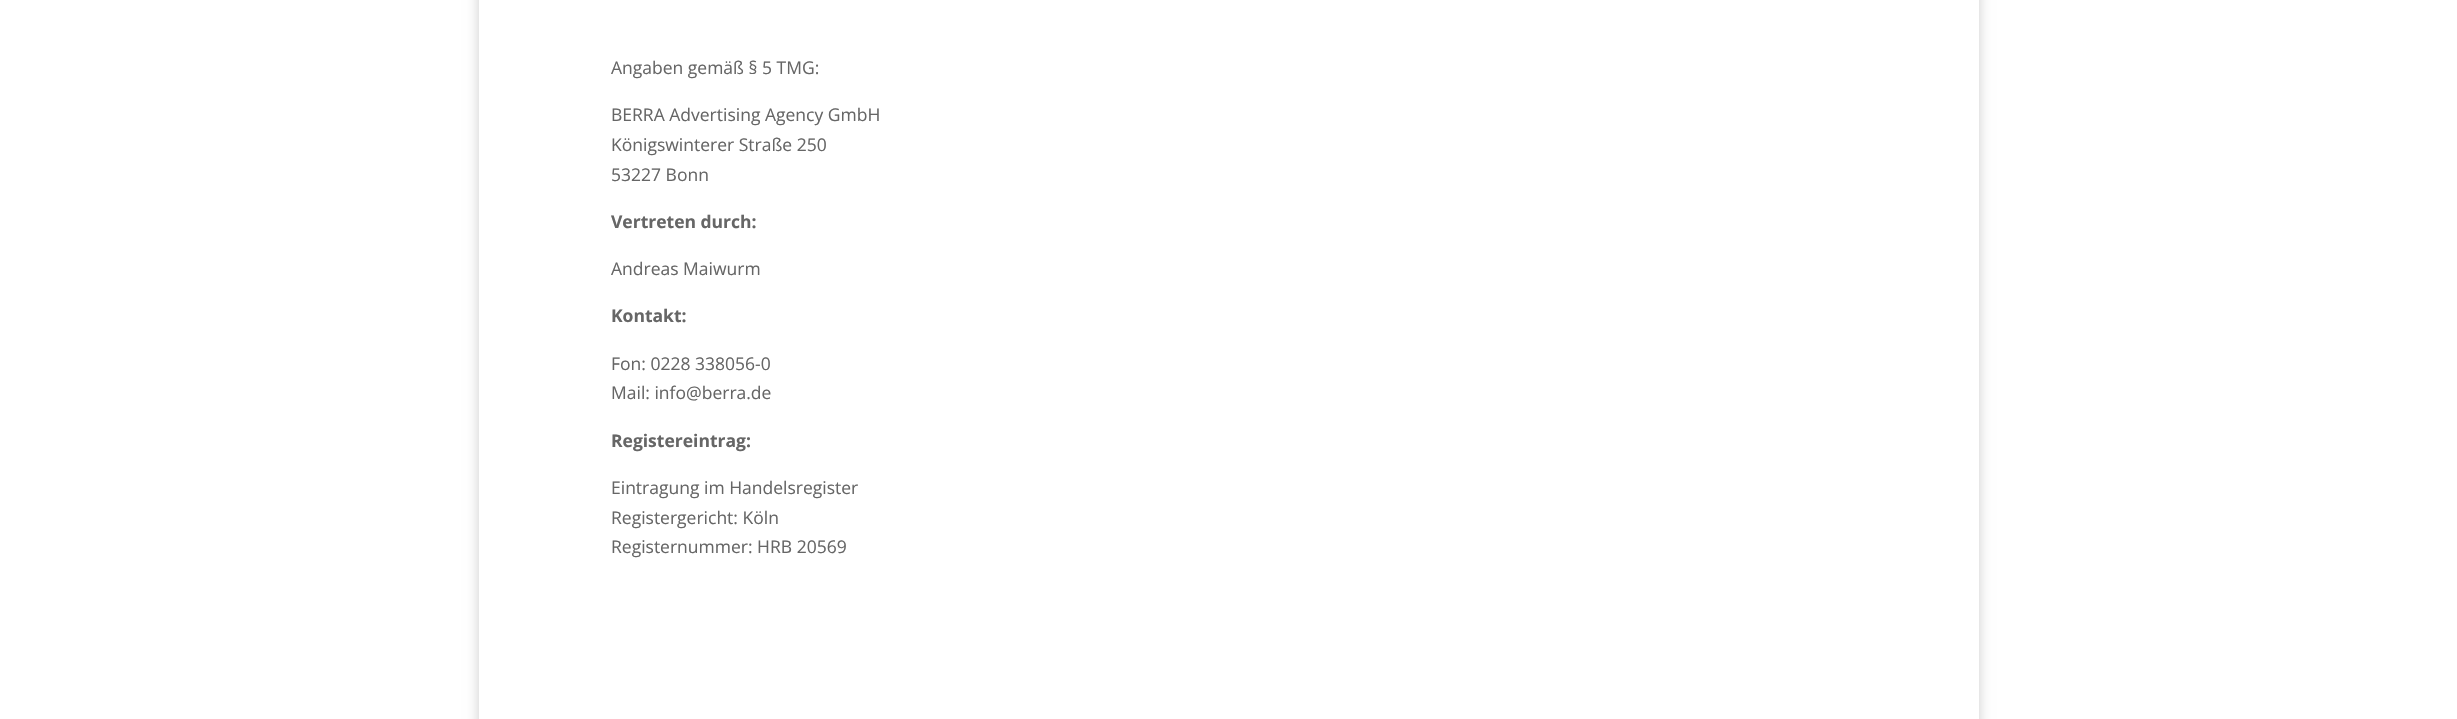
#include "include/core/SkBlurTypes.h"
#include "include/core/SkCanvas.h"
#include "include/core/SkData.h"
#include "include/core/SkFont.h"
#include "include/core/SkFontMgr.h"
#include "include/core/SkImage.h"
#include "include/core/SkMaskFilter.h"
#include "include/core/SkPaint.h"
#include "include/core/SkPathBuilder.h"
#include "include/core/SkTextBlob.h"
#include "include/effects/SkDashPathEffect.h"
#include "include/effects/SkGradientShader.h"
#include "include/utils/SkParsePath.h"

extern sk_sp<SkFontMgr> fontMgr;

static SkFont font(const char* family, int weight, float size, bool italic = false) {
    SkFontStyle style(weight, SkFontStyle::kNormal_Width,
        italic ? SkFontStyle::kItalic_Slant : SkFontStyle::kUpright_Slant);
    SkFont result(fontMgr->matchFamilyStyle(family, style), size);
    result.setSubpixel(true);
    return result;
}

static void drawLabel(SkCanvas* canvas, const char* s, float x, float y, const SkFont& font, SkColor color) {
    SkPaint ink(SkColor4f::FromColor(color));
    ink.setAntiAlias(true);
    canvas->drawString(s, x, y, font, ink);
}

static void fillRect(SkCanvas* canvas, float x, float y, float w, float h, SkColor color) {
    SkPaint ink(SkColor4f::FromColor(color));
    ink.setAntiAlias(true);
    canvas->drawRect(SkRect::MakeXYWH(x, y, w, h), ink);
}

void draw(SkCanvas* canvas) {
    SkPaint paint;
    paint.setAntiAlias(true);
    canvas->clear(0xFFFFFFFF);
    paint.setColor(0x33000000);
    paint.setMaskFilter(SkMaskFilter::MakeBlur(kNormal_SkBlurStyle, 6));
    canvas->drawRect(SkRect::MakeXYWH(479, -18, 1500, 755), paint);
    paint.setMaskFilter(nullptr);
    fillRect(canvas, 479, 0, 1500, 719, 0xFFFFFFFF);
    SkFont font1 = font("Open Sans", 400, 17.5f);
    drawLabel(canvas, "Angaben gemäß § 5 TMG:", 611, 74, font1, 0xFF666666);
    drawLabel(canvas, "BERRA Advertising Agency GmbH", 611, 121, font1, 0xFF666666);
    drawLabel(canvas, "Königswinterer Straße 250", 611, 151, font1, 0xFF666666);
    drawLabel(canvas, "53227 Bonn", 611, 181, font1, 0xFF666666);
    SkFont font2 = font("Open Sans", 700, 17.5f);
    drawLabel(canvas, "Vertreten durch:", 611, 228, font2, 0xFF666666);
    drawLabel(canvas, "Andreas Maiwurm", 611, 275, font1, 0xFF666666);
    drawLabel(canvas, "Kontakt:", 611, 322, font2, 0xFF666666);
    drawLabel(canvas, "Fon: 0228 338056-0", 611, 370, font1, 0xFF666666);
    drawLabel(canvas, "Mail: info@berra.de", 611, 399, font1, 0xFF666666);
    drawLabel(canvas, "Registereintrag:", 611, 447, font2, 0xFF666666);
    drawLabel(canvas, "Eintragung im Handelsregister", 611, 494, font1, 0xFF666666);
    drawLabel(canvas, "Registergericht: Köln", 611, 524, font1, 0xFF666666);
    drawLabel(canvas, "Registernummer: HRB 20569", 611, 553, font1, 0xFF666666);
}
